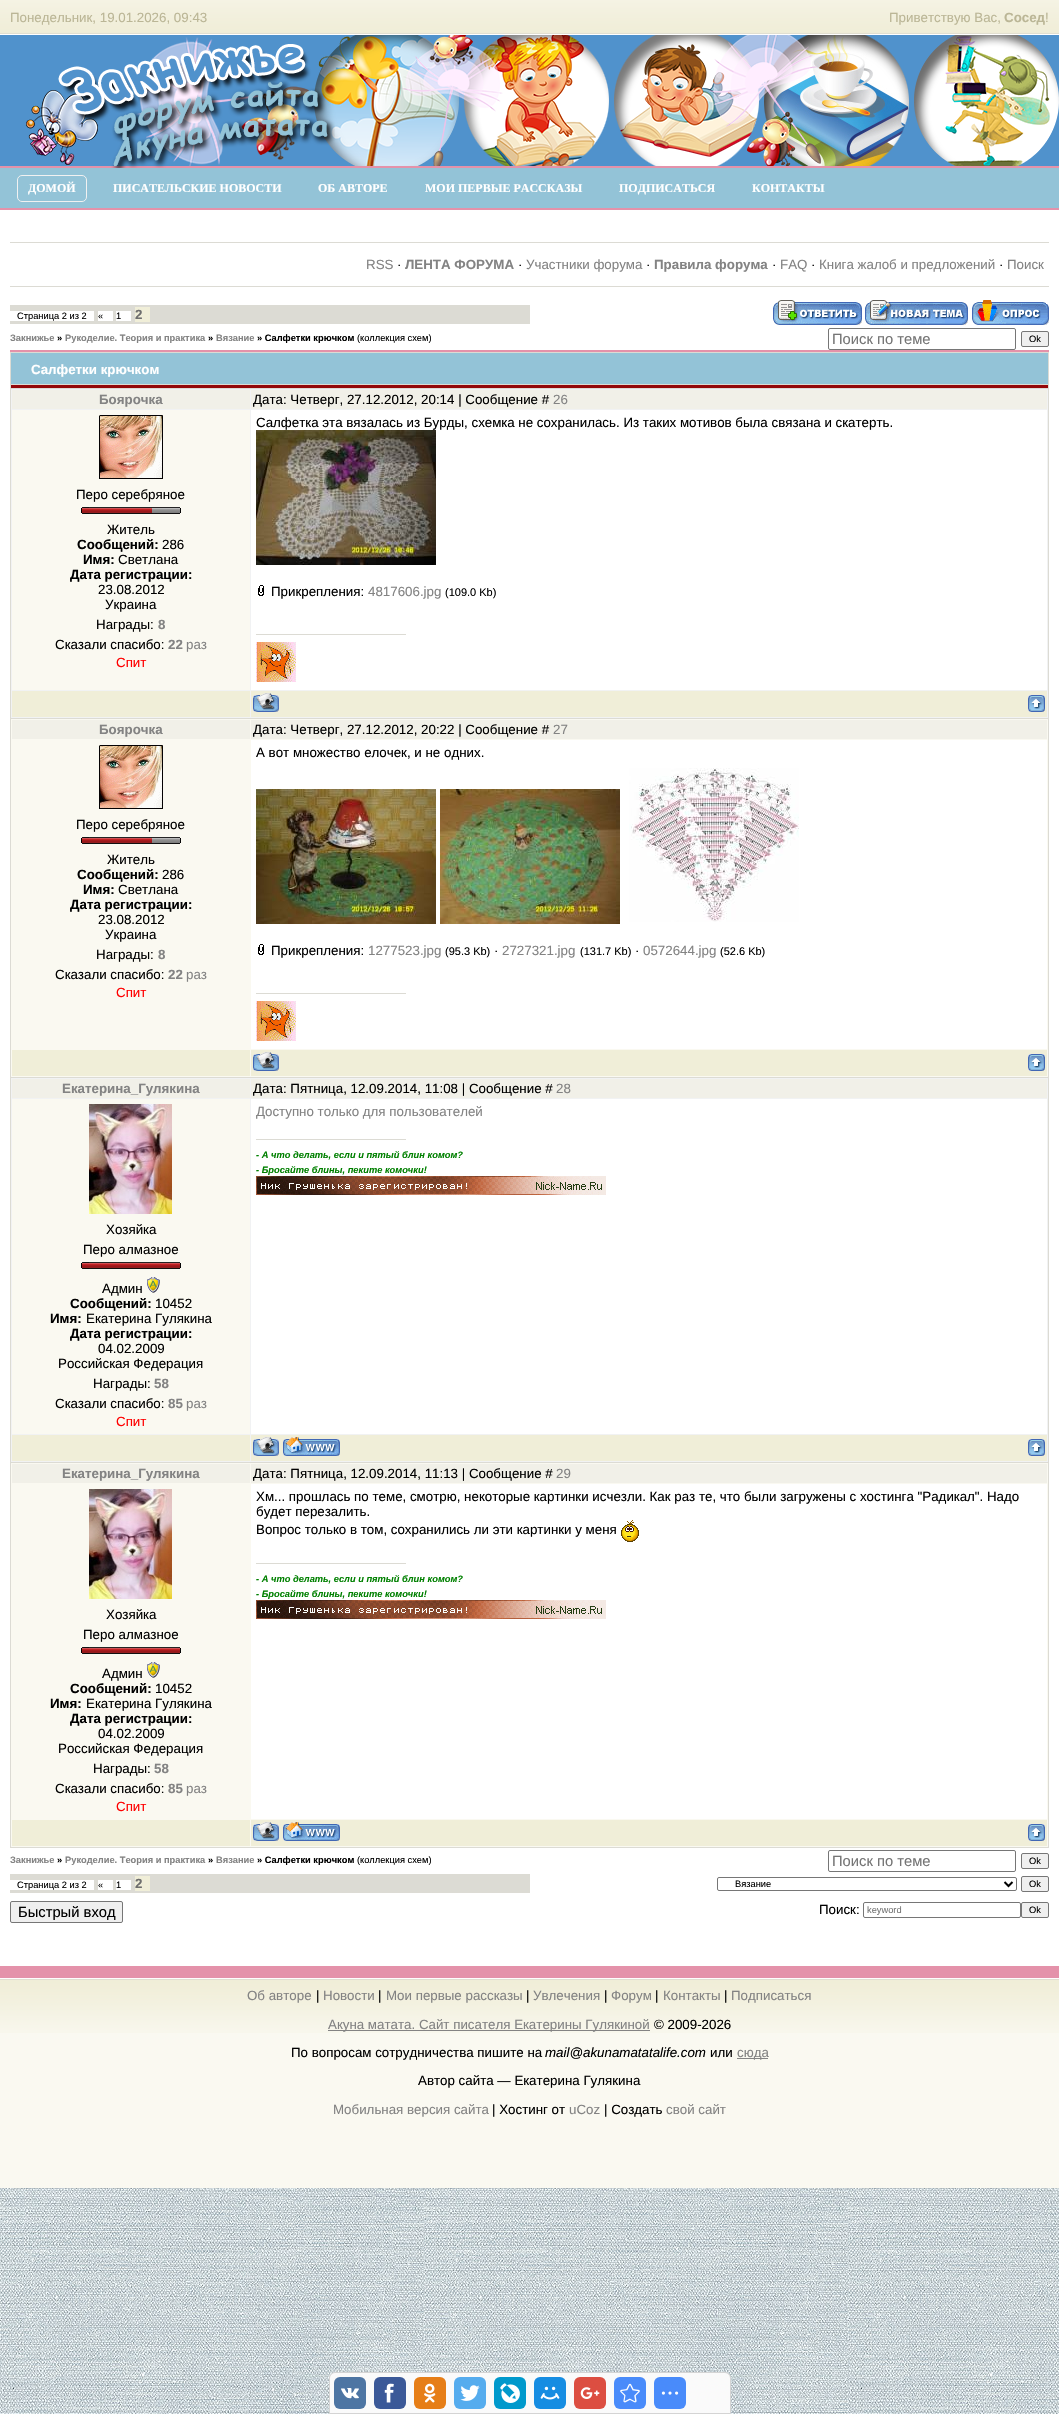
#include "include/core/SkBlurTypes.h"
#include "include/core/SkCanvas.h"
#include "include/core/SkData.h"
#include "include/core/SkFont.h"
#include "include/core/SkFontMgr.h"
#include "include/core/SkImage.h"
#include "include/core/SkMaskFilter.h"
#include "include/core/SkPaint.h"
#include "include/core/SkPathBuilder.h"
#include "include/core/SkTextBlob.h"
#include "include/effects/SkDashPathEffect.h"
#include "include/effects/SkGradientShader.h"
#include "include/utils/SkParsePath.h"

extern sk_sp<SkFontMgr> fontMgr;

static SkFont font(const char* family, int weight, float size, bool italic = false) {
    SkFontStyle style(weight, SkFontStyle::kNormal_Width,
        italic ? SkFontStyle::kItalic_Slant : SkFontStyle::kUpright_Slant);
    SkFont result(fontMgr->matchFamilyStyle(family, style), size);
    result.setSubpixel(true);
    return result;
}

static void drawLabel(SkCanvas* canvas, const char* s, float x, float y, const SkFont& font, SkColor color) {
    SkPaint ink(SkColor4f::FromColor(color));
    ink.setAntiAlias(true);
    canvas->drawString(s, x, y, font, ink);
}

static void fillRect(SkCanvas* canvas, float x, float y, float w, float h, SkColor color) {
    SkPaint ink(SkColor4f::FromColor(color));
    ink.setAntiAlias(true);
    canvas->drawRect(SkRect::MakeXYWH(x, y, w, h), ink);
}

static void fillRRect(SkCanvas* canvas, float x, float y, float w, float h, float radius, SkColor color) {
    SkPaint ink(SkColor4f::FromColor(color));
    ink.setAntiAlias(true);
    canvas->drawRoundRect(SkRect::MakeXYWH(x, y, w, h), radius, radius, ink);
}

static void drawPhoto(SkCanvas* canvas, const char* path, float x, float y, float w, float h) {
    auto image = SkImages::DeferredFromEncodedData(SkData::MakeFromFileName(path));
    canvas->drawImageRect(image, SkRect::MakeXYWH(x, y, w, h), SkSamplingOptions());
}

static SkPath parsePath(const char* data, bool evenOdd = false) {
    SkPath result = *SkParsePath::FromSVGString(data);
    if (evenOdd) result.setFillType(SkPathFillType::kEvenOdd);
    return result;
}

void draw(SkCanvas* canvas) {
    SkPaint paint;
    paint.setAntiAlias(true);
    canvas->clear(0xFFFFFFFF);
    drawPhoto(canvas, "assets/img1.png", 0, 2188, 1059, 226);
    drawPhoto(canvas, "assets/img2.png", 0, 0, 1059, 35);
    SkFont font1 = font("Liberation Sans", 400, 13.33f);
    drawLabel(canvas, "Понедельник, 19.01.2026, 09:43", 10, 22, font1, 0xFFBBB696);
    drawLabel(canvas, "Приветствую Вас,", 889, 22, font1, 0xFFBBB696);
    SkFont font2 = font("Liberation Sans", 700, 13.33f);
    drawLabel(canvas, "Сосед", 1004, 22, font2, 0xFFBBB696);
    drawLabel(canvas, "!", 1045, 22, font1, 0xFFBBB696);
    fillRect(canvas, 0, 35, 1059, 131, 0xFF5092CC);
    drawPhoto(canvas, "assets/img3.png", 136, 35, 923, 131);
    fillRect(canvas, 0, 166, 1059, 2, 0xFFE492AA);
    drawPhoto(canvas, "assets/img4.png", 26, 44, 309, 124);
    fillRect(canvas, 0, 168, 1059, 40, 0xFF93C3D7);
    paint.setStroke(true);
    paint.setStrokeWidth(1);
    paint.setColor(0xFFF1F1F1);
    canvas->drawRoundRect(SkRect::MakeXYWH(17.5f, 175.5f, 69, 26), 4.5f, 4.5f, paint);
    SkFont font3 = font("Liberation Serif", 700, 12);
    drawLabel(canvas, "ДОМОЙ", 28, 192, font3, 0xFFFFFFFF);
    drawLabel(canvas, "ПИСАТЕЛЬСКИЕ НОВОСТИ", 113, 192, font3, 0xFFFFFFFF);
    drawLabel(canvas, "ОБ АВТОРЕ", 318, 192, font3, 0xFFFFFFFF);
    drawLabel(canvas, "МОИ ПЕРВЫЕ РАССКАЗЫ", 425, 192, font3, 0xFFFFFFFF);
    drawLabel(canvas, "ПОДПИСАТЬСЯ", 619, 192, font3, 0xFFFFFFFF);
    drawLabel(canvas, "КОНТАКТЫ", 752, 192, font3, 0xFFFFFFFF);
    fillRect(canvas, 0, 208, 1059, 2, 0xFFE492AA);
    fillRect(canvas, 10, 242, 1039, 1, 0xFFDCDBD4);
    drawLabel(canvas, "RSS", 366, 269, font1, 0xFF838383);
    drawLabel(canvas, "·", 397, 269, font1, 0xFF000000);
    drawLabel(canvas, "ЛЕНТА ФОРУМА", 405, 269, font2, 0xFF838383);
    drawLabel(canvas, "·", 518, 269, font1, 0xFF000000);
    drawLabel(canvas, "Участники форума", 526, 269, font1, 0xFF838383);
    drawLabel(canvas, "·", 646, 269, font1, 0xFF000000);
    drawLabel(canvas, "Правила форума", 654, 269, font2, 0xFF838383);
    drawLabel(canvas, "·", 772, 269, font1, 0xFF000000);
    drawLabel(canvas, "FAQ", 780, 269, font1, 0xFF838383);
    drawLabel(canvas, "·", 811, 269, font1, 0xFF000000);
    drawLabel(canvas, "Книга жалоб и предложений", 819, 269, font1, 0xFF838383);
    drawLabel(canvas, "·", 999, 269, font1, 0xFF000000);
    drawLabel(canvas, "Поиск", 1007, 269, font1, 0xFF838383);
    fillRect(canvas, 10, 286, 1039, 1, 0xFFDCDBD4);
    fillRect(canvas, 10, 305, 520, 19, 0xFFDCDBD4);
    fillRect(canvas, 10, 311, 84, 10, 0xFFFFFFFF);
    SkFont font4 = font("Liberation Sans", 400, 9.3f);
    drawLabel(canvas, "Страница 2 из 2", 17, 319, font4, 0xFF000000);
    fillRect(canvas, 98, 311, 15, 10, 0xFFFFFFFF);
    drawLabel(canvas, "«", 98, 319, font4, 0xFF000000);
    fillRect(canvas, 116, 311, 15, 10, 0xFFFFFFFF);
    drawLabel(canvas, "1", 116, 319, font4, 0xFF000000);
    fillRect(canvas, 135, 307, 15, 15, 0xFFF0EED8);
    drawLabel(canvas, "2", 135, 319, font2, 0xFF6E6E6E);
    drawPhoto(canvas, "assets/img5.png", 773, 300, 89, 25);
    drawPhoto(canvas, "assets/img6.png", 865, 300, 103, 25);
    drawPhoto(canvas, "assets/img7.png", 972, 300, 77, 25);
    SkFont font5 = font("Liberation Sans", 700, 9.3f);
    drawLabel(canvas, "Закнижье", 10, 341, font5, 0xFF838383);
    drawLabel(canvas, "»", 57, 341, font5, 0xFF000000);
    drawLabel(canvas, "Рукоделие. Теория и практика", 65, 341, font5, 0xFF838383);
    drawLabel(canvas, "»", 208, 341, font5, 0xFF000000);
    drawLabel(canvas, "Вязание", 216, 341, font5, 0xFF838383);
    drawLabel(canvas, "» Салфетки крючком", 257, 341, font5, 0xFF000000);
    drawLabel(canvas, "(коллекция схем)", 357, 341, font4, 0xFF000000);
    paint.setColor(0xFF767676);
    canvas->drawRoundRect(SkRect::MakeXYWH(828.5f, 328.5f, 187, 21), 1.5f, 1.5f, paint);
    SkFont font6 = font("Liberation Sans", 400, 14.75f);
    drawLabel(canvas, "Поиск по теме", 832, 344, font6, 0xFF757575);
    paint.setStroke(false);
    paint.setColor(0xFFEFEFEF);
    canvas->drawRoundRect(SkRect::MakeXYWH(1021.5f, 331.5f, 27, 15), 1.5f, 1.5f, paint);
    paint.setStroke(true);
    paint.setColor(0xFF767676);
    canvas->drawRoundRect(SkRect::MakeXYWH(1021.5f, 331.5f, 27, 15), 1.5f, 1.5f, paint);
    drawLabel(canvas, "Ok", 1029, 342, font4, 0xFF000000);
    fillRect(canvas, 10, 352, 1039, 1496, 0xFFDCDBD4);
    fillRect(canvas, 10, 350, 1039, 2, 0xFFE492AA);
    fillRect(canvas, 11, 353, 1037, 31, 0xFF93C3D7);
    drawLabel(canvas, "Салфетки крючком", 31, 374, font2, 0xFFFFFFFF);
    fillRect(canvas, 11, 385, 1037, 3, 0xFF93070A);
    fillRect(canvas, 11, 389, 1037, 329, 0xFFF1F2F3);
    fillRect(canvas, 12, 390, 238, 19, 0xFFF1F0E8);
    drawLabel(canvas, "Боярочка", 99, 404, font2, 0xFF838383);
    fillRect(canvas, 251, 390, 796, 19, 0xFFF1F0E8);
    drawLabel(canvas, "Дата: Четверг, 27.12.2012, 20:14 | Сообщение #", 253, 404, font1, 0xFF000000);
    drawLabel(canvas, "26", 553, 404, font1, 0xFF838383);
    fillRect(canvas, 12, 410, 238, 280, 0xFFFAF9F1);
    drawPhoto(canvas, "assets/img8.png", 99, 415, 64, 64);
    drawLabel(canvas, "Перо серебряное", 76, 499, font1, 0xFF000000);
    drawPhoto(canvas, "assets/img9.png", 81, 507, 100, 7);
    drawLabel(canvas, "Житель", 107, 534, font1, 0xFF000000);
    drawLabel(canvas, "Сообщений:", 77, 549, font2, 0xFF000000);
    drawLabel(canvas, "286", 162, 549, font1, 0xFF000000);
    drawLabel(canvas, "Имя:", 83, 564, font2, 0xFF000000);
    drawLabel(canvas, "Светлана", 118, 564, font1, 0xFF000000);
    drawLabel(canvas, "Дата регистрации:", 70, 579, font2, 0xFF000000);
    drawLabel(canvas, "23.08.2012", 98, 594, font1, 0xFF000000);
    drawLabel(canvas, "Украина", 105, 609, font1, 0xFF000000);
    drawLabel(canvas, "Награды:", 96, 629, font1, 0xFF000000);
    drawLabel(canvas, "8", 158, 629, font2, 0xFF838383);
    drawLabel(canvas, "Сказали спасибо:", 55, 649, font1, 0xFF000000);
    drawLabel(canvas, "22", 168, 649, font2, 0xFF838383);
    drawLabel(canvas, "раз", 186, 649, font1, 0xFF838383);
    drawLabel(canvas, "Спит", 116, 667, font1, 0xFFFF0000);
    fillRect(canvas, 251, 410, 796, 280, 0xFFFFFFFF);
    drawLabel(canvas, "Салфетка эта вязалась из Бурды, схемка не сохранилась. Из таких мотивов была связана и скатерть.", 256, 427, font1, 0xFF000000);
    drawPhoto(canvas, "assets/img10.png", 256, 430, 180, 135);
    drawPhoto(canvas, "assets/img11.png", 258, 585, 6, 11);
    drawLabel(canvas, "Прикрепления:", 271, 596, font1, 0xFF000000);
    drawLabel(canvas, "4817606.jpg", 368, 596, font1, 0xFF838383);
    SkFont font7 = font("Liberation Sans", 400, 11);
    drawLabel(canvas, "(109.0 Kb)", 445, 596, font7, 0xFF000000);
    fillRect(canvas, 256, 634, 150, 1, 0xFFDCDBD4);
    drawPhoto(canvas, "assets/img12.png", 256, 642, 40, 40);
    fillRect(canvas, 12, 691, 238, 26, 0xFFF0EED8);
    fillRect(canvas, 251, 691, 796, 26, 0xFFF0EED8);
    drawPhoto(canvas, "assets/img13.png", 253, 693, 26, 19);
    drawPhoto(canvas, "assets/img14.png", 1028, 695, 17, 17);
    fillRect(canvas, 11, 719, 1037, 358, 0xFFFAF9F1);
    fillRect(canvas, 12, 720, 238, 19, 0xFFF1F0E8);
    drawLabel(canvas, "Боярочка", 99, 734, font2, 0xFF838383);
    fillRect(canvas, 251, 720, 796, 19, 0xFFF1F0E8);
    drawLabel(canvas, "Дата: Четверг, 27.12.2012, 20:22 | Сообщение #", 253, 734, font1, 0xFF000000);
    drawLabel(canvas, "27", 553, 734, font1, 0xFF838383);
    drawPhoto(canvas, "assets/img8.png", 99, 745, 64, 64);
    drawLabel(canvas, "Перо серебряное", 76, 829, font1, 0xFF000000);
    drawPhoto(canvas, "assets/img9.png", 81, 837, 100, 7);
    drawLabel(canvas, "Житель", 107, 864, font1, 0xFF000000);
    drawLabel(canvas, "Сообщений:", 77, 879, font2, 0xFF000000);
    drawLabel(canvas, "286", 162, 879, font1, 0xFF000000);
    drawLabel(canvas, "Имя:", 83, 894, font2, 0xFF000000);
    drawLabel(canvas, "Светлана", 118, 894, font1, 0xFF000000);
    drawLabel(canvas, "Дата регистрации:", 70, 909, font2, 0xFF000000);
    drawLabel(canvas, "23.08.2012", 98, 924, font1, 0xFF000000);
    drawLabel(canvas, "Украина", 105, 939, font1, 0xFF000000);
    drawLabel(canvas, "Награды:", 96, 959, font1, 0xFF000000);
    drawLabel(canvas, "8", 158, 959, font2, 0xFF838383);
    drawLabel(canvas, "Сказали спасибо:", 55, 979, font1, 0xFF000000);
    drawLabel(canvas, "22", 168, 979, font2, 0xFF838383);
    drawLabel(canvas, "раз", 186, 979, font1, 0xFF838383);
    drawLabel(canvas, "Спит", 116, 997, font1, 0xFFFF0000);
    fillRect(canvas, 251, 740, 796, 309, 0xFFFFFFFF);
    drawLabel(canvas, "А вот множество елочек, и не одних.", 256, 757, font1, 0xFF000000);
    drawPhoto(canvas, "assets/img15.png", 256, 789, 180, 135);
    drawPhoto(canvas, "assets/img16.png", 440, 789, 180, 135);
    drawPhoto(canvas, "assets/img17.png", 629, 768, 170, 154);
    drawPhoto(canvas, "assets/img11.png", 258, 944, 6, 11);
    drawLabel(canvas, "Прикрепления:", 271, 955, font1, 0xFF000000);
    drawLabel(canvas, "1277523.jpg", 368, 955, font1, 0xFF838383);
    drawLabel(canvas, "(95.3 Kb)", 445, 955, font7, 0xFF000000);
    drawLabel(canvas, "·", 494, 955, font1, 0xFF000000);
    drawLabel(canvas, "2727321.jpg", 502, 955, font1, 0xFF838383);
    drawLabel(canvas, "(131.7 Kb)", 580, 955, font7, 0xFF000000);
    drawLabel(canvas, "·", 635, 955, font1, 0xFF000000);
    drawLabel(canvas, "0572644.jpg", 643, 955, font1, 0xFF838383);
    drawLabel(canvas, "(52.6 Kb)", 720, 955, font7, 0xFF000000);
    fillRect(canvas, 256, 993, 150, 1, 0xFFDCDBD4);
    drawPhoto(canvas, "assets/img12.png", 256, 1001, 40, 40);
    fillRect(canvas, 12, 1050, 238, 26, 0xFFF0EED8);
    fillRect(canvas, 251, 1050, 796, 26, 0xFFF0EED8);
    drawPhoto(canvas, "assets/img13.png", 253, 1052, 26, 19);
    drawPhoto(canvas, "assets/img14.png", 1028, 1054, 17, 17);
    fillRect(canvas, 11, 1078, 1037, 384, 0xFFF1F2F3);
    fillRect(canvas, 12, 1079, 238, 19, 0xFFF1F0E8);
    drawLabel(canvas, "Екатерина_Гулякина", 62, 1093, font2, 0xFF838383);
    fillRect(canvas, 251, 1079, 796, 19, 0xFFF1F0E8);
    drawLabel(canvas, "Дата: Пятница, 12.09.2014, 11:08 | Сообщение #", 253, 1093, font1, 0xFF000000);
    drawLabel(canvas, "28", 556, 1093, font1, 0xFF838383);
    fillRect(canvas, 251, 1099, 796, 335, 0xFFFFFFFF);
    drawLabel(canvas, "Доступно только для пользователей", 256, 1116, font1, 0xFF838383);
    fillRect(canvas, 256, 1139, 150, 1, 0xFFDCDBD4);
    SkFont font8 = font("Liberation Sans", 700, 9.3f, true);
    drawLabel(canvas, "- А что делать, если и пятый блин комом?", 256, 1158, font8, 0xFF008000);
    drawLabel(canvas, "- Бросайте блины, пеките комочки!", 256, 1173, font8, 0xFF008000);
    drawPhoto(canvas, "assets/img18.png", 256, 1176, 350, 19);
    fillRect(canvas, 12, 1099, 238, 335, 0xFFFAF9F1);
    drawPhoto(canvas, "assets/img19.png", 89, 1104, 83, 110);
    drawLabel(canvas, "Хозяйка", 106, 1234, font1, 0xFF000000);
    drawLabel(canvas, "Перо алмазное", 83, 1254, font1, 0xFF000000);
    drawPhoto(canvas, "assets/img20.png", 81, 1262, 100, 7);
    drawLabel(canvas, "Админ", 102, 1293, font1, 0xFF000000);
    drawPhoto(canvas, "assets/img21.png", 147, 1277, 13, 16);
    drawLabel(canvas, "Сообщений:", 70, 1308, font2, 0xFF000000);
    drawLabel(canvas, "10452", 155, 1308, font1, 0xFF000000);
    drawLabel(canvas, "Имя:", 50, 1323, font2, 0xFF000000);
    drawLabel(canvas, "Екатерина Гулякина", 86, 1323, font1, 0xFF000000);
    drawLabel(canvas, "Дата регистрации:", 70, 1338, font2, 0xFF000000);
    drawLabel(canvas, "04.02.2009", 98, 1353, font1, 0xFF000000);
    drawLabel(canvas, "Российская Федерация", 58, 1368, font1, 0xFF000000);
    drawLabel(canvas, "Награды:", 93, 1388, font1, 0xFF000000);
    drawLabel(canvas, "58", 154, 1388, font2, 0xFF838383);
    drawLabel(canvas, "Сказали спасибо:", 55, 1408, font1, 0xFF000000);
    drawLabel(canvas, "85", 168, 1408, font2, 0xFF838383);
    drawLabel(canvas, "раз", 186, 1408, font1, 0xFF838383);
    drawLabel(canvas, "Спит", 116, 1426, font1, 0xFFFF0000);
    fillRect(canvas, 12, 1435, 238, 26, 0xFFF0EED8);
    fillRect(canvas, 251, 1435, 796, 26, 0xFFF0EED8);
    drawPhoto(canvas, "assets/img13.png", 253, 1437, 26, 19);
    drawPhoto(canvas, "assets/img22.png", 283, 1437, 57, 19);
    drawPhoto(canvas, "assets/img14.png", 1028, 1439, 17, 17);
    fillRect(canvas, 11, 1463, 1037, 384, 0xFFFAF9F1);
    fillRect(canvas, 12, 1464, 238, 19, 0xFFF1F0E8);
    drawLabel(canvas, "Екатерина_Гулякина", 62, 1478, font2, 0xFF838383);
    fillRect(canvas, 251, 1464, 796, 19, 0xFFF1F0E8);
    drawLabel(canvas, "Дата: Пятница, 12.09.2014, 11:13 | Сообщение #", 253, 1478, font1, 0xFF000000);
    drawLabel(canvas, "29", 556, 1478, font1, 0xFF838383);
    fillRect(canvas, 251, 1484, 796, 335, 0xFFFFFFFF);
    drawLabel(canvas, "Хм... прошлась по теме, смотрю, некоторые картинки исчезли. Как раз те, что были загружены с хостинга \"Радикал\". Надо", 256, 1501, font1, 0xFF000000);
    drawLabel(canvas, "будет перезалить.", 256, 1516, font1, 0xFF000000);
    drawLabel(canvas, "Вопрос только в том, сохранились ли эти картинки у меня", 256, 1534, font1, 0xFF000000);
    drawPhoto(canvas, "assets/img23.png", 621, 1520, 18, 22);
    fillRect(canvas, 256, 1563, 150, 1, 0xFFDCDBD4);
    drawLabel(canvas, "- А что делать, если и пятый блин комом?", 256, 1582, font8, 0xFF008000);
    drawLabel(canvas, "- Бросайте блины, пеките комочки!", 256, 1597, font8, 0xFF008000);
    drawPhoto(canvas, "assets/img18.png", 256, 1600, 350, 19);
    drawPhoto(canvas, "assets/img19.png", 89, 1489, 83, 110);
    drawLabel(canvas, "Хозяйка", 106, 1619, font1, 0xFF000000);
    drawLabel(canvas, "Перо алмазное", 83, 1639, font1, 0xFF000000);
    drawPhoto(canvas, "assets/img20.png", 81, 1647, 100, 7);
    drawLabel(canvas, "Админ", 102, 1678, font1, 0xFF000000);
    drawPhoto(canvas, "assets/img21.png", 147, 1662, 13, 16);
    drawLabel(canvas, "Сообщений:", 70, 1693, font2, 0xFF000000);
    drawLabel(canvas, "10452", 155, 1693, font1, 0xFF000000);
    drawLabel(canvas, "Имя:", 50, 1708, font2, 0xFF000000);
    drawLabel(canvas, "Екатерина Гулякина", 86, 1708, font1, 0xFF000000);
    drawLabel(canvas, "Дата регистрации:", 70, 1723, font2, 0xFF000000);
    drawLabel(canvas, "04.02.2009", 98, 1738, font1, 0xFF000000);
    drawLabel(canvas, "Российская Федерация", 58, 1753, font1, 0xFF000000);
    drawLabel(canvas, "Награды:", 93, 1773, font1, 0xFF000000);
    drawLabel(canvas, "58", 154, 1773, font2, 0xFF838383);
    drawLabel(canvas, "Сказали спасибо:", 55, 1793, font1, 0xFF000000);
    drawLabel(canvas, "85", 168, 1793, font2, 0xFF838383);
    drawLabel(canvas, "раз", 186, 1793, font1, 0xFF838383);
    drawLabel(canvas, "Спит", 116, 1811, font1, 0xFFFF0000);
    fillRect(canvas, 12, 1820, 238, 26, 0xFFF0EED8);
    fillRect(canvas, 251, 1820, 796, 26, 0xFFF0EED8);
    drawPhoto(canvas, "assets/img13.png", 253, 1822, 26, 19);
    drawPhoto(canvas, "assets/img22.png", 283, 1822, 57, 19);
    drawPhoto(canvas, "assets/img14.png", 1028, 1824, 17, 17);
    drawLabel(canvas, "Закнижье", 10, 1863, font5, 0xFF838383);
    drawLabel(canvas, "»", 57, 1863, font5, 0xFF000000);
    drawLabel(canvas, "Рукоделие. Теория и практика", 65, 1863, font5, 0xFF838383);
    drawLabel(canvas, "»", 208, 1863, font5, 0xFF000000);
    drawLabel(canvas, "Вязание", 216, 1863, font5, 0xFF838383);
    drawLabel(canvas, "» Салфетки крючком", 257, 1863, font5, 0xFF000000);
    drawLabel(canvas, "(коллекция схем)", 357, 1863, font4, 0xFF000000);
    canvas->drawRoundRect(SkRect::MakeXYWH(828.5f, 1850.5f, 187, 21), 1.5f, 1.5f, paint);
    drawLabel(canvas, "Поиск по теме", 832, 1866, font6, 0xFF757575);
    paint.setStroke(false);
    paint.setColor(0xFFEFEFEF);
    canvas->drawRoundRect(SkRect::MakeXYWH(1021.5f, 1853.5f, 27, 15), 1.5f, 1.5f, paint);
    paint.setStroke(true);
    paint.setColor(0xFF767676);
    canvas->drawRoundRect(SkRect::MakeXYWH(1021.5f, 1853.5f, 27, 15), 1.5f, 1.5f, paint);
    drawLabel(canvas, "Ok", 1029, 1864, font4, 0xFF000000);
    fillRect(canvas, 10, 1874, 520, 19, 0xFFDCDBD4);
    fillRect(canvas, 10, 1880, 84, 10, 0xFFFFFFFF);
    drawLabel(canvas, "Страница 2 из 2", 17, 1888, font4, 0xFF000000);
    fillRect(canvas, 98, 1880, 15, 10, 0xFFFFFFFF);
    drawLabel(canvas, "«", 98, 1888, font4, 0xFF000000);
    fillRect(canvas, 116, 1880, 15, 10, 0xFFFFFFFF);
    drawLabel(canvas, "1", 116, 1888, font4, 0xFF000000);
    fillRect(canvas, 135, 1876, 15, 15, 0xFFF0EED8);
    drawLabel(canvas, "2", 135, 1888, font2, 0xFF6E6E6E);
    canvas->drawRoundRect(SkRect::MakeXYWH(717.5f, 1877.5f, 299, 13), 1.5f, 1.5f, paint);
    paint.setStrokeWidth(2);
    paint.setColor(0xFF000000);
    canvas->drawPath(parsePath("M1004.5 1882L1008.5 1886L1012.5 1882"), paint);
    drawLabel(canvas, "Вязание", 735, 1887, font4, 0xFF000000);
    paint.setStroke(false);
    paint.setColor(0xFFEFEFEF);
    canvas->drawRoundRect(SkRect::MakeXYWH(1021.5f, 1876.5f, 27, 15), 1.5f, 1.5f, paint);
    paint.setStroke(true);
    paint.setStrokeWidth(1);
    paint.setColor(0xFF767676);
    canvas->drawRoundRect(SkRect::MakeXYWH(1021.5f, 1876.5f, 27, 15), 1.5f, 1.5f, paint);
    drawLabel(canvas, "Ok", 1029, 1887, font4, 0xFF000000);
    paint.setStroke(false);
    paint.setColor(0xFFEFEFEF);
    canvas->drawRoundRect(SkRect::MakeXYWH(10.5f, 1901.5f, 112, 21), 1.5f, 1.5f, paint);
    paint.setStroke(true);
    paint.setColor(0xFF767676);
    canvas->drawRoundRect(SkRect::MakeXYWH(10.5f, 1901.5f, 112, 21), 1.5f, 1.5f, paint);
    drawLabel(canvas, "Быстрый вход", 18, 1917, font6, 0xFF000000);
    drawLabel(canvas, "Поиск:", 819, 1914, font1, 0xFF000000);
    canvas->drawRoundRect(SkRect::MakeXYWH(863.5f, 1902.5f, 157, 15), 1.5f, 1.5f, paint);
    drawLabel(canvas, "keyword", 867, 1913, font4, 0xFF757575);
    paint.setStroke(false);
    paint.setColor(0xFFEFEFEF);
    canvas->drawRoundRect(SkRect::MakeXYWH(1021.5f, 1902.5f, 27, 15), 1.5f, 1.5f, paint);
    paint.setStroke(true);
    paint.setColor(0xFF767676);
    canvas->drawRoundRect(SkRect::MakeXYWH(1021.5f, 1902.5f, 27, 15), 1.5f, 1.5f, paint);
    drawLabel(canvas, "Ok", 1029, 1913, font4, 0xFF000000);
    fillRect(canvas, 0, 1966, 1059, 12, 0xFFE492AA);
    fillRect(canvas, 0, 2033, 1059, 155, 0xFFFAF9F1);
    drawPhoto(canvas, "assets/img24.png", 0, 1978, 1059, 55);
    drawLabel(canvas, "Об авторе", 247, 2000, font1, 0xFF838383);
    drawLabel(canvas, "|", 316, 2000, font1, 0xFF000000);
    drawLabel(canvas, "Новости", 323, 2000, font1, 0xFF838383);
    drawLabel(canvas, "|", 378, 2000, font1, 0xFF000000);
    drawLabel(canvas, "Мои первые рассказы", 386, 2000, font1, 0xFF838383);
    drawLabel(canvas, "|", 526, 2000, font1, 0xFF000000);
    drawLabel(canvas, "Увлечения", 533, 2000, font1, 0xFF838383);
    drawLabel(canvas, "|", 604, 2000, font1, 0xFF000000);
    drawLabel(canvas, "Форум", 611, 2000, font1, 0xFF838383);
    drawLabel(canvas, "|", 655, 2000, font1, 0xFF000000);
    drawLabel(canvas, "Контакты", 663, 2000, font1, 0xFF838383);
    drawLabel(canvas, "|", 724, 2000, font1, 0xFF000000);
    drawLabel(canvas, "Подписаться", 731, 2000, font1, 0xFF838383);
    fillRect(canvas, 328, 2030, 322, 1, 0xFF838383);
    drawLabel(canvas, "Акуна матата. Сайт писателя Екатерины Гулякиной", 328, 2029, font1, 0xFF838383);
    drawLabel(canvas, "© 2009-2026", 654, 2029, font1, 0xFF000000);
    drawLabel(canvas, "По вопросам сотрудничества пишите на", 291, 2057, font1, 0xFF000000);
    SkFont font9 = font("Liberation Sans", 400, 13.33f, true);
    drawLabel(canvas, "mail@akunamatatalife.com", 545, 2057, font9, 0xFF000000);
    drawLabel(canvas, "или", 710, 2057, font1, 0xFF000000);
    fillRect(canvas, 737, 2058, 31, 1, 0xFF838383);
    drawLabel(canvas, "сюда", 737, 2057, font1, 0xFF838383);
    drawLabel(canvas, "Автор сайта — Екатерина Гулякина", 418, 2085, font1, 0xFF000000);
    drawLabel(canvas, "Мобильная версия сайта", 333, 2114, font1, 0xFF838383);
    drawLabel(canvas, "| Хостинг от", 492, 2114, font1, 0xFF000000);
    drawLabel(canvas, "uCoz", 569, 2114, font1, 0xFF838383);
    drawLabel(canvas, "| Создать", 604, 2114, font1, 0xFF000000);
    drawLabel(canvas, "свой сайт", 666, 2114, font1, 0xFF838383);
    paint.setStroke(false);
    paint.setColor(0xFFFAFAFA);
    canvas->drawPath(parsePath("M335 2372.5H725C728 2372.5 730.5 2375 730.5 2378V2413.5H329.5V2378C329.5 2375 332 2372.5 335 2372.5Z"), paint);
    paint.setStroke(true);
    paint.setColor(0xFFD4D4D4);
    canvas->drawPath(parsePath("M335 2372.5H725C728 2372.5 730.5 2375 730.5 2378V2413.5H329.5V2378C329.5 2375 332 2372.5 335 2372.5Z"), paint);
    fillRRect(canvas, 334, 2377, 32, 32, 6, 0xFF4D75A3);
    drawPhoto(canvas, "assets/img25.png", 341, 2388, 18, 11);
    fillRRect(canvas, 374, 2377, 32, 32, 6, 0xFF3B5998);
    drawPhoto(canvas, "assets/img26.png", 384, 2383, 10, 20);
    fillRRect(canvas, 414, 2377, 32, 32, 6, 0xFFE67E17);
    drawPhoto(canvas, "assets/img27.png", 424, 2383, 12, 20);
    fillRRect(canvas, 454, 2377, 32, 32, 6, 0xFF55ACEE);
    drawPhoto(canvas, "assets/img28.png", 460, 2385, 20, 16);
    fillRRect(canvas, 494, 2377, 32, 32, 6, 0xFF0099CC);
    drawPhoto(canvas, "assets/img29.png", 500, 2383, 20, 20);
    fillRRect(canvas, 534, 2377, 32, 32, 6, 0xFF168DE2);
    drawPhoto(canvas, "assets/img30.png", 540, 2386, 20, 14);
    fillRRect(canvas, 574, 2377, 32, 32, 6, 0xFFDC4E41);
    drawPhoto(canvas, "assets/img31.png", 580, 2387, 20, 12);
    fillRRect(canvas, 614, 2377, 32, 32, 6, 0xFF498BFA);
    drawPhoto(canvas, "assets/img32.png", 620, 2383, 20, 20);
    fillRRect(canvas, 654, 2377, 32, 32, 6, 0xFF498BFA);
    drawPhoto(canvas, "assets/img33.png", 661, 2391, 18, 4);
}
